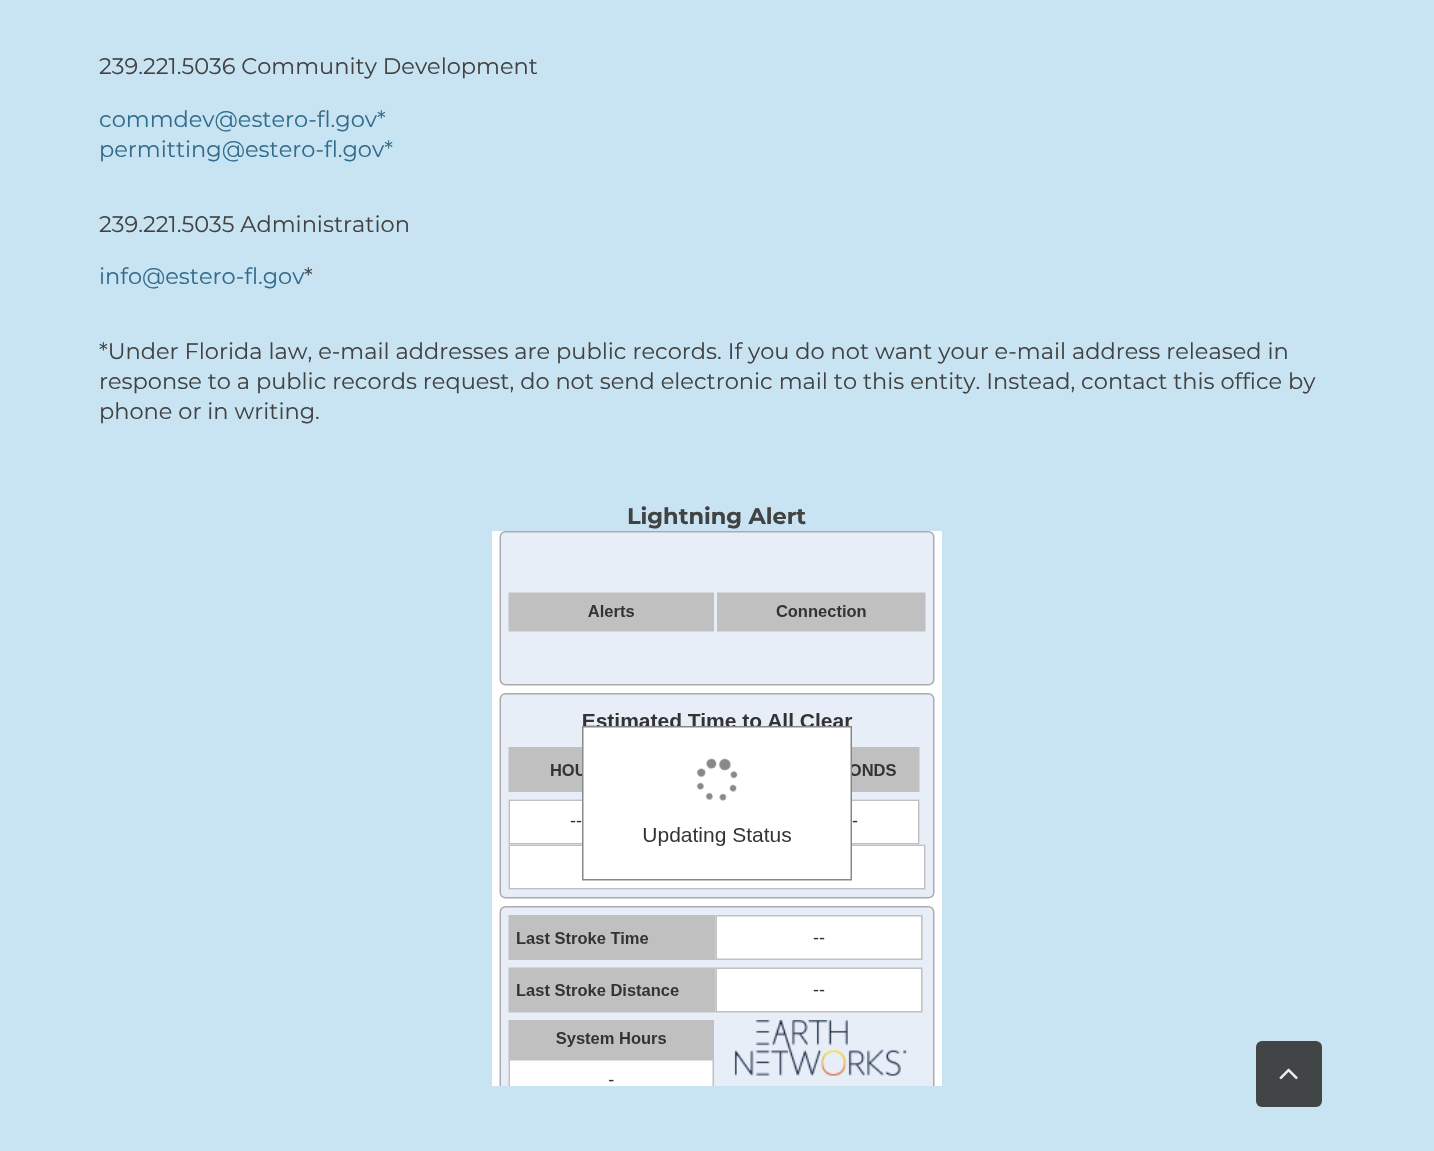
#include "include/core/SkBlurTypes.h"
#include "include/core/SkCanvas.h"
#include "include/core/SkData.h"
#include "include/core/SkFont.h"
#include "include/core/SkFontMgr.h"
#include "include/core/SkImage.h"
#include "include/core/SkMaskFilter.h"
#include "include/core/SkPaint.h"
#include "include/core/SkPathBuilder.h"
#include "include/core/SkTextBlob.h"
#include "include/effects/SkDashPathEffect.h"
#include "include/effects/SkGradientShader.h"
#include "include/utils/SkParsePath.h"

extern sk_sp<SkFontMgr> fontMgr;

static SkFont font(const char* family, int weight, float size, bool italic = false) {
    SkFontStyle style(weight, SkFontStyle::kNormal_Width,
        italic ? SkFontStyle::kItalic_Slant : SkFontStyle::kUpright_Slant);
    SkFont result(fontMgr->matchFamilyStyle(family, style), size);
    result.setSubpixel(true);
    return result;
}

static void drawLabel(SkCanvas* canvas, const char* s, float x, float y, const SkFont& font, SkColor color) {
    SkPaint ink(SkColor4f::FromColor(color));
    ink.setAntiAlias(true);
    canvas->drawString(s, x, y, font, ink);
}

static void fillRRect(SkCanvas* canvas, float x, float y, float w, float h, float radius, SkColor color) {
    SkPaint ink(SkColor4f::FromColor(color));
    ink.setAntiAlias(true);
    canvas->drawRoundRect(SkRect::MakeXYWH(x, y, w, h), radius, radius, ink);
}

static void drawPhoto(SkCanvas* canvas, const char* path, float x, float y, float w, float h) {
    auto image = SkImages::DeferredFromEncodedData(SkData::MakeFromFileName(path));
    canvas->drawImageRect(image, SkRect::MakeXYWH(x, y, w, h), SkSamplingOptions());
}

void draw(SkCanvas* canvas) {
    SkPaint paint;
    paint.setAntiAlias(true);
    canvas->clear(0xFFC8E3F1);
    SkFont font1 = font("Montserrat", 400, 22.5f);
    drawLabel(canvas, "239.221.5036 Community Development", 99, 74, font1, 0xFF424242);
    drawLabel(canvas, "commdev@estero-fl.gov*", 99, 127, font1, 0xFF326C8C);
    drawLabel(canvas, "permitting@estero-fl.gov*", 99, 157, font1, 0xFF326C8C);
    drawLabel(canvas, "239.221.5035 Administration", 99, 232, font1, 0xFF424242);
    drawLabel(canvas, "info@estero-fl.gov", 99, 284, font1, 0xFF326C8C);
    drawLabel(canvas, "*", 304, 284, font1, 0xFF424242);
    drawLabel(canvas, "*Under Florida law, e-mail addresses are public records. If you do not want your e-mail address released in", 99, 359, font1, 0xFF424242);
    drawLabel(canvas, "response to a public records request, do not send electronic mail to this entity. Instead, contact this office by", 99, 389, font1, 0xFF424242);
    drawLabel(canvas, "phone or in writing.", 99, 419, font1, 0xFF424242);
    SkFont font2 = font("Montserrat", 700, 22.5f);
    drawLabel(canvas, "Lightning Alert", 627, 524, font2, 0xFF424242);
    drawPhoto(canvas, "assets/img1.png", 492, 531, 450, 555);
    fillRRect(canvas, 1256, 1041, 66, 66, 6, 0xFF424546);
    drawPhoto(canvas, "assets/img2.png", 1279, 1068, 19, 12);
}
